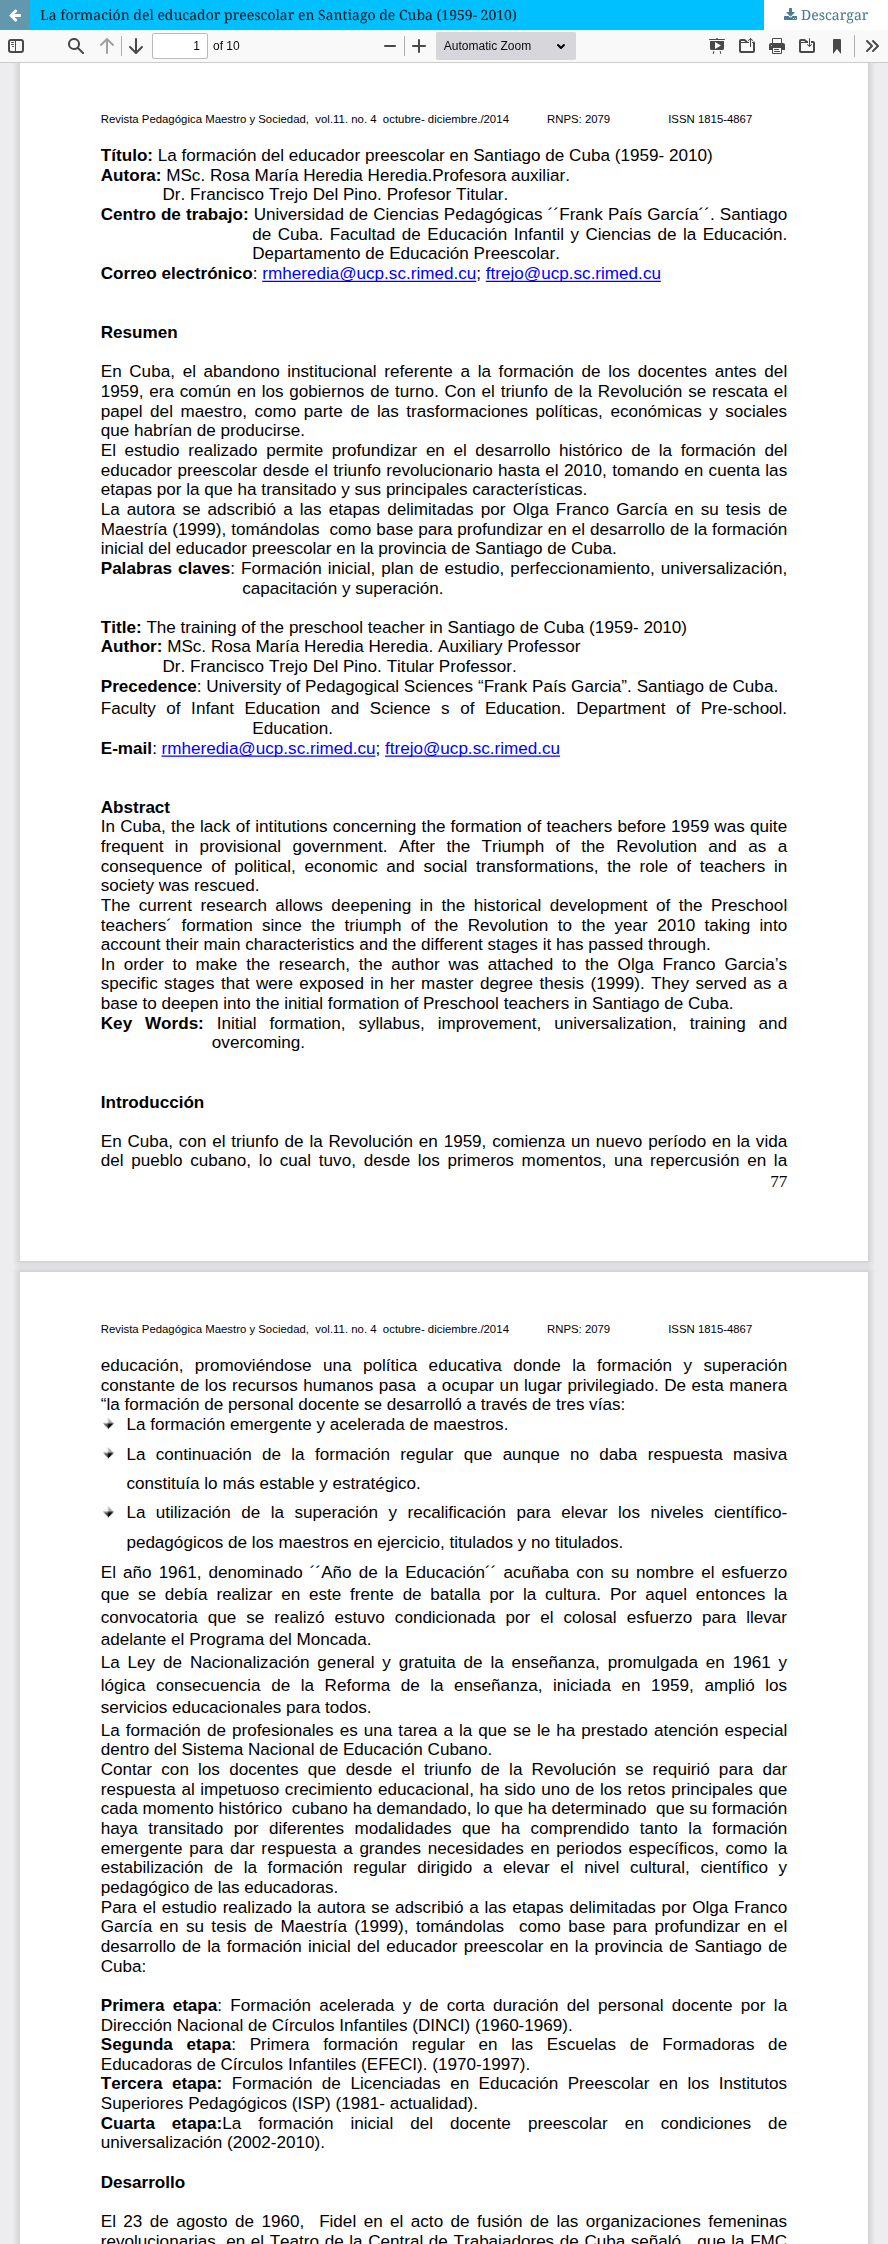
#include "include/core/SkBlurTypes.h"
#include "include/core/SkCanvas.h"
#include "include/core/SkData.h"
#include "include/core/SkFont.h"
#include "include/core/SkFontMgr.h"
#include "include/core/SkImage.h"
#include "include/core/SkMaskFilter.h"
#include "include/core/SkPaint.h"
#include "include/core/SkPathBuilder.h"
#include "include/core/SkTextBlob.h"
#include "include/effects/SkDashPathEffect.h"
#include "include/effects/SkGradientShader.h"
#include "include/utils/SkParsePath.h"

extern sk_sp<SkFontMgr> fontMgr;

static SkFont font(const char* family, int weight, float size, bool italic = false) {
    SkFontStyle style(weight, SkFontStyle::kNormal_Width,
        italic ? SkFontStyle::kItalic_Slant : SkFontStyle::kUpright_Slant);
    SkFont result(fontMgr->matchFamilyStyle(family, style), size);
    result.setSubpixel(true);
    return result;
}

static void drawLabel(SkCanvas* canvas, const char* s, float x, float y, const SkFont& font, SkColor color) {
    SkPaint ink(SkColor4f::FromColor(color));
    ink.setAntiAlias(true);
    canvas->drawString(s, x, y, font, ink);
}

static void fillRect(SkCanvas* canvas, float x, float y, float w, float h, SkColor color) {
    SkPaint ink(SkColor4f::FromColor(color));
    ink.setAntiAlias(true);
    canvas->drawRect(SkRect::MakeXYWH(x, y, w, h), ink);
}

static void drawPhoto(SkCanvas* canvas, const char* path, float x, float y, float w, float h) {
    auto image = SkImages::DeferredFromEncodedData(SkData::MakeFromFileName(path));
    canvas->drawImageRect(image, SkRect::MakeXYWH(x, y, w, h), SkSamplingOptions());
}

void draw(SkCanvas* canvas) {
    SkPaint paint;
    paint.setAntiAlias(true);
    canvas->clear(0xFFFFFFFF);
    fillRect(canvas, 30, 0, 734, 30, 0xFF00C0FF);
    fillRect(canvas, 0, 0, 30, 30, 0xFF6298AE);
    drawPhoto(canvas, "assets/img1.png", 9, 9, 12, 13);
    SkFont font1 = font("Noto Serif", 400, 14);
    drawLabel(canvas, "La formación del educador preescolar en Santiago de Cuba (1959- 2010)", 40, 20, font1, 0xFF001F29);
    drawPhoto(canvas, "assets/img2.png", 784, 8, 13, 12);
    drawLabel(canvas, "Descargar", 801, 20, font1, 0xFF4B7D92);
    drawPhoto(canvas, "assets/img3.png", 0, 30, 888, 2214);
}
